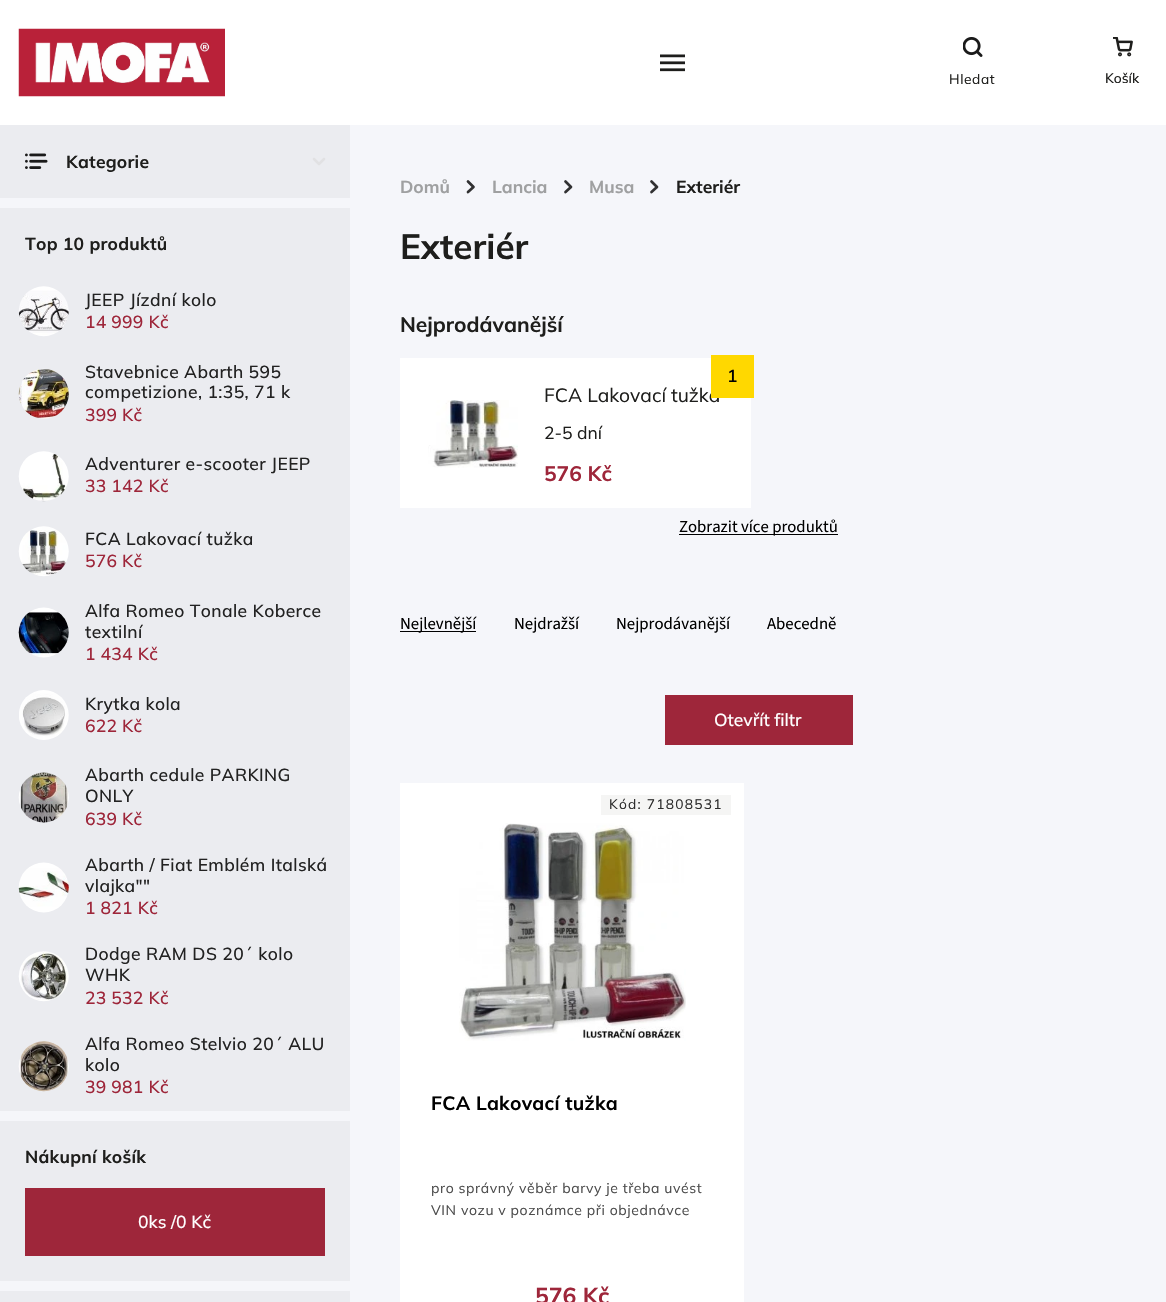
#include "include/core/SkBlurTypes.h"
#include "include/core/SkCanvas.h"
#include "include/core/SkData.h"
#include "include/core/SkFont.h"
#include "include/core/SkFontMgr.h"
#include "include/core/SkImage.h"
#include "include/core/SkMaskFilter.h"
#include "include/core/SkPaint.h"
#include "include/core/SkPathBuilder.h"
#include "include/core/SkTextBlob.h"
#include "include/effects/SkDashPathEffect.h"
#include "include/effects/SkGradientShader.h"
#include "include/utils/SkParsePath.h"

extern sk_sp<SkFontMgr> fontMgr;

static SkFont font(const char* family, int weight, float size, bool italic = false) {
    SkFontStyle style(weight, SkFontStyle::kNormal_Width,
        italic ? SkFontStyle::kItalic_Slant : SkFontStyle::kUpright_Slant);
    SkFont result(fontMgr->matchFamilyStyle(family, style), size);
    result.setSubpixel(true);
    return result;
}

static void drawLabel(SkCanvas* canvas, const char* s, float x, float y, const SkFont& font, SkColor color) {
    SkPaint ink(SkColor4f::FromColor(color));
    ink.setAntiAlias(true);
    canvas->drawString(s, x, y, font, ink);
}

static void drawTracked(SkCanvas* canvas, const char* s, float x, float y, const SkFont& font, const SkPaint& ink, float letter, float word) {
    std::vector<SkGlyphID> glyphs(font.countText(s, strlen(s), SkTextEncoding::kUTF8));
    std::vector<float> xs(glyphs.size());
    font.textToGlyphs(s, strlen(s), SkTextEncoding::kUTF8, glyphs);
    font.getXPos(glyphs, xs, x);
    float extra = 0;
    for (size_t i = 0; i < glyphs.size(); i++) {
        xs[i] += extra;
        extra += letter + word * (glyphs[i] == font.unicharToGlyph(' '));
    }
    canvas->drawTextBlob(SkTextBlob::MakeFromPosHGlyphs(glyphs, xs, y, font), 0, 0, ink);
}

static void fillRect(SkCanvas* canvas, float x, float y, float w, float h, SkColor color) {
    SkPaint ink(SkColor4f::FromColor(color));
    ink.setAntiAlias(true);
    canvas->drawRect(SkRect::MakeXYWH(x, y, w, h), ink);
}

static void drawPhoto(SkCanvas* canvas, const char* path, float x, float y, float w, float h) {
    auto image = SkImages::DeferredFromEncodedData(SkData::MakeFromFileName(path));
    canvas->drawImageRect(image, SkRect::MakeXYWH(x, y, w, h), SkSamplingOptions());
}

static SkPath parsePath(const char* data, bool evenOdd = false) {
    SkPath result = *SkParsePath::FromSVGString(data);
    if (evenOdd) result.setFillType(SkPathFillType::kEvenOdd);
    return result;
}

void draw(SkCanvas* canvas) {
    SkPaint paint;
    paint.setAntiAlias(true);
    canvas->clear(0xFFF5F6FA);
    fillRect(canvas, 0, 0, 1166, 125, 0xFFFFFFFF);
    drawPhoto(canvas, "assets/img1.png", 660, 54, 25, 18);
    drawPhoto(canvas, "assets/img2.png", 18, 28, 207, 69);
    drawPhoto(canvas, "assets/img3.png", 963, 37, 20, 20);
    SkFont font1 = font("Mulish", 400, 13.75f);
    paint.setColor(0xFF1E1E1C);
    drawTracked(canvas, "Hledat", 949, 84, font1, paint, 0.6f, 0);
    drawPhoto(canvas, "assets/img4.png", 1113, 37, 20, 20);
    SkFont font2 = font("Mulish", 500, 13.75f);
    drawLabel(canvas, "Košík", 1105, 83, font2, 0xFF1E1E1C);
    fillRect(canvas, 0, 125, 350, 73, 0xFFEBECF0);
    drawPhoto(canvas, "assets/img5.png", 25, 153, 23, 16);
    SkFont font3 = font("Mulish", 700, 17.5f);
    drawTracked(canvas, "Kategorie", 66, 168, font3, paint, 0.25f, 0);
    paint.setStroke(true);
    paint.setStrokeWidth(2.5f);
    paint.setStrokeCap(SkPaint::kRound_Cap);
    paint.setStrokeJoin(SkPaint::kRound_Join);
    paint.setColor(0xFFE1E1E3);
    canvas->drawPath(parsePath("M314 159L319 164L324 159"), paint);
    fillRect(canvas, 0, 208, 350, 903, 0xFFEBECF0);
    paint.setStroke(false);
    paint.setColor(0xFF1E1E1C);
    drawTracked(canvas, "Top 10 produktů", 25, 250, font3, paint, 0.25f, 0);
    drawPhoto(canvas, "assets/img6.png", 18, 286, 51, 51);
    SkFont font4 = font("Mulish", 500, 17.5f);
    paint.setColor(0xFF222222);
    drawTracked(canvas, "JEEP Jízdní kolo", 85, 306, font4, paint, 0.4f, 0);
    paint.setColor(0xFF9E263A);
    drawTracked(canvas, "14 999 Kč", 85, 328, font4, paint, 0.25f, 0);
    drawPhoto(canvas, "assets/img7.png", 18, 368, 51, 51);
    paint.setColor(0xFF222222);
    drawTracked(canvas, "Stavebnice Abarth 595", 85, 378, font4, paint, 0.4f, 0);
    drawTracked(canvas, "competizione, 1:35, 71 k", 85, 398, font4, paint, 0.4f, 0);
    paint.setColor(0xFF9E263A);
    drawTracked(canvas, "399 Kč", 85, 421, font4, paint, 0.25f, 0);
    drawPhoto(canvas, "assets/img8.png", 18, 451, 51, 51);
    paint.setColor(0xFF222222);
    drawTracked(canvas, "Adventurer e-scooter JEEP", 85, 470, font4, paint, 0.4f, 0);
    paint.setColor(0xFF9E263A);
    drawTracked(canvas, "33 142 Kč", 85, 492, font4, paint, 0.25f, 0);
    drawPhoto(canvas, "assets/img9.png", 18, 526, 51, 51);
    paint.setColor(0xFF222222);
    drawTracked(canvas, "FCA Lakovací tužka", 85, 545, font4, paint, 0.4f, 0);
    paint.setColor(0xFF9E263A);
    drawTracked(canvas, "576 Kč", 85, 567, font4, paint, 0.25f, 0);
    drawPhoto(canvas, "assets/img10.png", 18, 607, 51, 51);
    paint.setColor(0xFF222222);
    drawTracked(canvas, "Alfa Romeo Tonale Koberce", 85, 617, font4, paint, 0.4f, 0);
    drawTracked(canvas, "textilní", 85, 638, font4, paint, 0.4f, 0);
    paint.setColor(0xFF9E263A);
    drawTracked(canvas, "1 434 Kč", 85, 660, font4, paint, 0.25f, 0);
    drawPhoto(canvas, "assets/img11.png", 19, 690, 50, 50);
    paint.setColor(0xFF222222);
    drawTracked(canvas, "Krytka kola", 85, 710, font4, paint, 0.4f, 0);
    paint.setColor(0xFF9E263A);
    drawTracked(canvas, "622 Kč", 85, 732, font4, paint, 0.25f, 0);
    drawPhoto(canvas, "assets/img12.png", 18, 772, 51, 51);
    paint.setColor(0xFF222222);
    drawTracked(canvas, "Abarth cedule PARKING", 85, 781, font4, paint, 0.4f, 0);
    drawTracked(canvas, "ONLY", 85, 802, font4, paint, 0.4f, 0);
    paint.setColor(0xFF9E263A);
    drawTracked(canvas, "639 Kč", 85, 825, font4, paint, 0.25f, 0);
    drawPhoto(canvas, "assets/img13.png", 18, 862, 51, 51);
    paint.setColor(0xFF222222);
    drawTracked(canvas, "Abarth / Fiat Emblém Italská", 85, 871, font4, paint, 0.4f, 0);
    drawTracked(canvas, "vlajka\"\"", 85, 892, font4, paint, 0.4f, 0);
    paint.setColor(0xFF9E263A);
    drawTracked(canvas, "1 821 Kč", 85, 914, font4, paint, 0.25f, 0);
    drawPhoto(canvas, "assets/img14.png", 18, 951, 51, 51);
    paint.setColor(0xFF222222);
    drawTracked(canvas, "Dodge RAM DS 20´ kolo", 85, 960, font4, paint, 0.4f, 0);
    drawTracked(canvas, "WHK", 85, 981, font4, paint, 0.4f, 0);
    paint.setColor(0xFF9E263A);
    drawTracked(canvas, "23 532 Kč", 85, 1004, font4, paint, 0.25f, 0);
    drawPhoto(canvas, "assets/img15.png", 18, 1041, 51, 51);
    paint.setColor(0xFF222222);
    drawTracked(canvas, "Alfa Romeo Stelvio 20´ ALU", 85, 1050, font4, paint, 0.4f, 0);
    drawTracked(canvas, "kolo", 85, 1071, font4, paint, 0.4f, 0);
    paint.setColor(0xFF9E263A);
    drawTracked(canvas, "39 981 Kč", 85, 1093, font4, paint, 0.25f, 0);
    fillRect(canvas, 0, 1121, 350, 160, 0xFFEBECF0);
    paint.setColor(0xFF1E1E1C);
    drawTracked(canvas, "Nákupní košík", 25, 1163, font3, paint, 0.25f, 0);
    fillRect(canvas, 25, 1188, 300, 68, 0xFF9E263A);
    drawLabel(canvas, "0ks /0 Kč", 138, 1228, font4, 0xFFFFFFFF);
    fillRect(canvas, 0, 1291, 350, 11, 0xFFEBECF0);
    SkFont font5 = font("Mulish", 700, 35);
    drawLabel(canvas, "Exteriér", 400, 259, font5, 0xFF1E1E1C);
    SkFont font6 = font("Mulish", 700, 21);
    drawLabel(canvas, "Nejprodávanější", 400, 332, font6, 0xFF1E1E1C);
    fillRect(canvas, 400, 358, 351, 150, 0xFFFFFFFF);
    SkFont font7 = font("Mulish", 400, 19.25f);
    drawLabel(canvas, "FCA Lakovací tužka", 544, 402, font7, 0xFF1E1E1C);
    fillRect(canvas, 711, 355, 43, 43, 0xFFFFD800);
    SkFont font8 = font("Mulish", 600, 17.5f);
    drawLabel(canvas, "1", 727, 382, font8, 0xFF000000);
    drawPhoto(canvas, "assets/img16.png", 428, 400, 90, 68);
    SkFont font9 = font("Mulish", 400, 17.5f);
    drawLabel(canvas, "2-5 dní", 544, 439, font9, 0xFF1E1E1C);
    drawLabel(canvas, "576 Kč", 544, 481, font6, 0xFF9E263A);
    fillRect(canvas, 679, 534, 159, 1, 0xFF000000);
    SkFont font10 = font("Source Sans 3", 400, 16.75f);
    drawLabel(canvas, "Zobrazit více produktů", 679, 532, font10, 0xFF000000);
    fillRect(canvas, 400, 631, 76, 1, 0xFF000000);
    drawLabel(canvas, "Nejlevnější", 400, 629, font10, 0xFF000000);
    drawLabel(canvas, "Nejdražší", 514, 629, font10, 0xFF000000);
    drawLabel(canvas, "Nejprodávanější", 616, 629, font10, 0xFF000000);
    drawLabel(canvas, "Abecedně", 767, 629, font10, 0xFF000000);
    fillRect(canvas, 665, 695, 188, 50, 0xFF9E263A);
    drawLabel(canvas, "Otevřít filtr", 714, 726, font4, 0xFFFFFFFF);
    fillRect(canvas, 400, 783, 344, 519, 0xFFFFFFFF);
    fillRect(canvas, 601, 795, 130, 20, 0xFFF5F5F4);
    paint.setColor(0xFF2C2C2C);
    drawTracked(canvas, "Kód: 71808531", 609, 809, font1, paint, 1.25f, 0);
    drawPhoto(canvas, "assets/img17.png", 459, 823, 227, 218);
    SkFont font11 = font("Mulish", 700, 19.25f);
    paint.setColor(0xFF000000);
    drawTracked(canvas, "FCA Lakovací tužka", 431, 1110, font11, paint, 0.25f, 0);
    SkFont font12 = font("Mulish", 400, 14);
    paint.setColor(0xFF4D4D4D);
    drawTracked(canvas, "pro správný věběr barvy je třeba uvést", 431, 1193, font12, paint, 0.6f, 0);
    drawTracked(canvas, "VIN vozu v poznámce při objednávce", 431, 1215, font12, paint, 0.6f, 0);
    SkFont font13 = font("Mulish", 700, 23);
    drawLabel(canvas, "576 Kč", 535, 1304, font13, 0xFF9E263A);
    drawLabel(canvas, "Domů", 400, 193, font3, 0xFF9FA0A1);
    paint.setStroke(true);
    paint.setStrokeWidth(2.7f);
    paint.setColor(0xFF313132);
    canvas->drawPath(parsePath("M468 192L473.5 187L468 181.5"), paint);
    drawLabel(canvas, "Lancia", 492, 193, font3, 0xFF9FA0A1);
    canvas->drawPath(parsePath("M565.5 192L571 187L565.5 181.5"), paint);
    drawLabel(canvas, "Musa", 589, 193, font3, 0xFF9FA0A1);
    canvas->drawPath(parsePath("M651.5 192L657 187L651.5 181.5"), paint);
    drawLabel(canvas, "Exteriér", 676, 193, font3, 0xFF1E1E1C);
}
